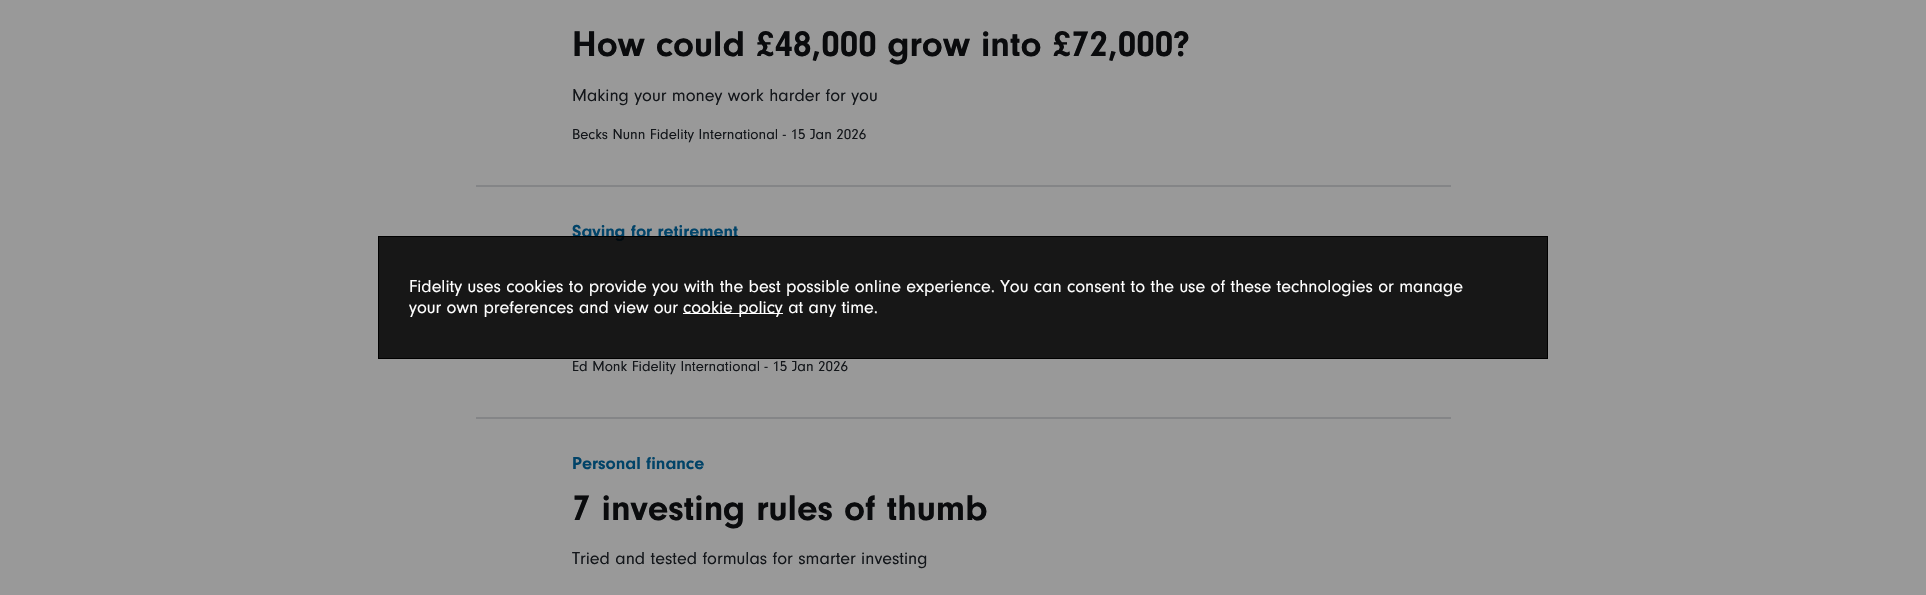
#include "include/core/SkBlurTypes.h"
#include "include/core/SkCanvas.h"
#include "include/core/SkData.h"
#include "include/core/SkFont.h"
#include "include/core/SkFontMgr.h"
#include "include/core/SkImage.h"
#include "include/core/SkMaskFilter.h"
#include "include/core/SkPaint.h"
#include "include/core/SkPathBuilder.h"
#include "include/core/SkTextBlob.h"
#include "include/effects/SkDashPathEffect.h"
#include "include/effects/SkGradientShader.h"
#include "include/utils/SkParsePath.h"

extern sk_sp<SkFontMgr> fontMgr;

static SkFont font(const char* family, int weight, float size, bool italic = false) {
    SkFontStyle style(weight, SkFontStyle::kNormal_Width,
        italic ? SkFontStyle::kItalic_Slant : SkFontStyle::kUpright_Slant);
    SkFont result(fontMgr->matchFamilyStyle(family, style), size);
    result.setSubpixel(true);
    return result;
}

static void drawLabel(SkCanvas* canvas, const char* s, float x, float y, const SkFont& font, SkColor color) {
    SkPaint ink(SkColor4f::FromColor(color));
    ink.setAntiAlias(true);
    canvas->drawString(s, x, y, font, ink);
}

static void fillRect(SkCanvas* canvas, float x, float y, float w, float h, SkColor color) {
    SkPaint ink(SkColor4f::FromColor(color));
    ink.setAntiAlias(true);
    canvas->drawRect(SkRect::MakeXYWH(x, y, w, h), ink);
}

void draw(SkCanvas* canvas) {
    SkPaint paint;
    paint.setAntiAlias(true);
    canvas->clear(0xFF999999);
    fillRect(canvas, 476, 185, 975, 2, 0xFF848587);
    SkFont font1 = font("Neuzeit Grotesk", 700, 37);
    drawLabel(canvas, "How could £48,000 grow into £72,000?", 572, 56, font1, 0xFF0A0B0D);
    SkFont font2 = font("Neuzeit Grotesk", 400, 18);
    drawLabel(canvas, "Making your money work harder for you", 572, 101, font2, 0xFF13161A);
    SkFont font3 = font("Neuzeit Grotesk", 400, 15);
    drawLabel(canvas, "Becks Nunn Fidelity International - 15 Jan 2026", 572, 139, font3, 0xFF13161A);
    fillRect(canvas, 476, 417, 975, 2, 0xFF848587);
    SkFont font4 = font("Neuzeit Grotesk", 700, 18);
    drawLabel(canvas, "Saving for retirement", 572, 237, font4, 0xFF014368);
    drawLabel(canvas, "Ed Monk Fidelity International - 15 Jan 2026", 572, 371, font3, 0xFF13161A);
    drawLabel(canvas, "Personal finance", 572, 469, font4, 0xFF014368);
    drawLabel(canvas, "7 investing rules of thumb", 572, 520, font1, 0xFF0A0B0D);
    drawLabel(canvas, "Tried and tested formulas for smarter investing", 572, 564, font2, 0xFF13161A);
    paint.setColor(0xD9000000);
    canvas->drawRect(SkRect::MakeXYWH(378.5f, 236.5f, 1169, 122), paint);
    paint.setStroke(true);
    paint.setStrokeWidth(1);
    paint.setColor(0xFF000000);
    canvas->drawRect(SkRect::MakeXYWH(378.5f, 236.5f, 1169, 122), paint);
    drawLabel(canvas, "Fidelity uses cookies to provide you with the best possible online experience. You can consent to the use of these technologies or manage", 409, 292, font2, 0xFFFFFFFF);
    drawLabel(canvas, "your own preferences and view our", 409, 313, font2, 0xFFFFFFFF);
    fillRect(canvas, 683, 313, 100, 1, 0xFFFFFFFF);
    drawLabel(canvas, "cookie policy at any time.", 683, 313, font2, 0xFFFFFFFF);
}
